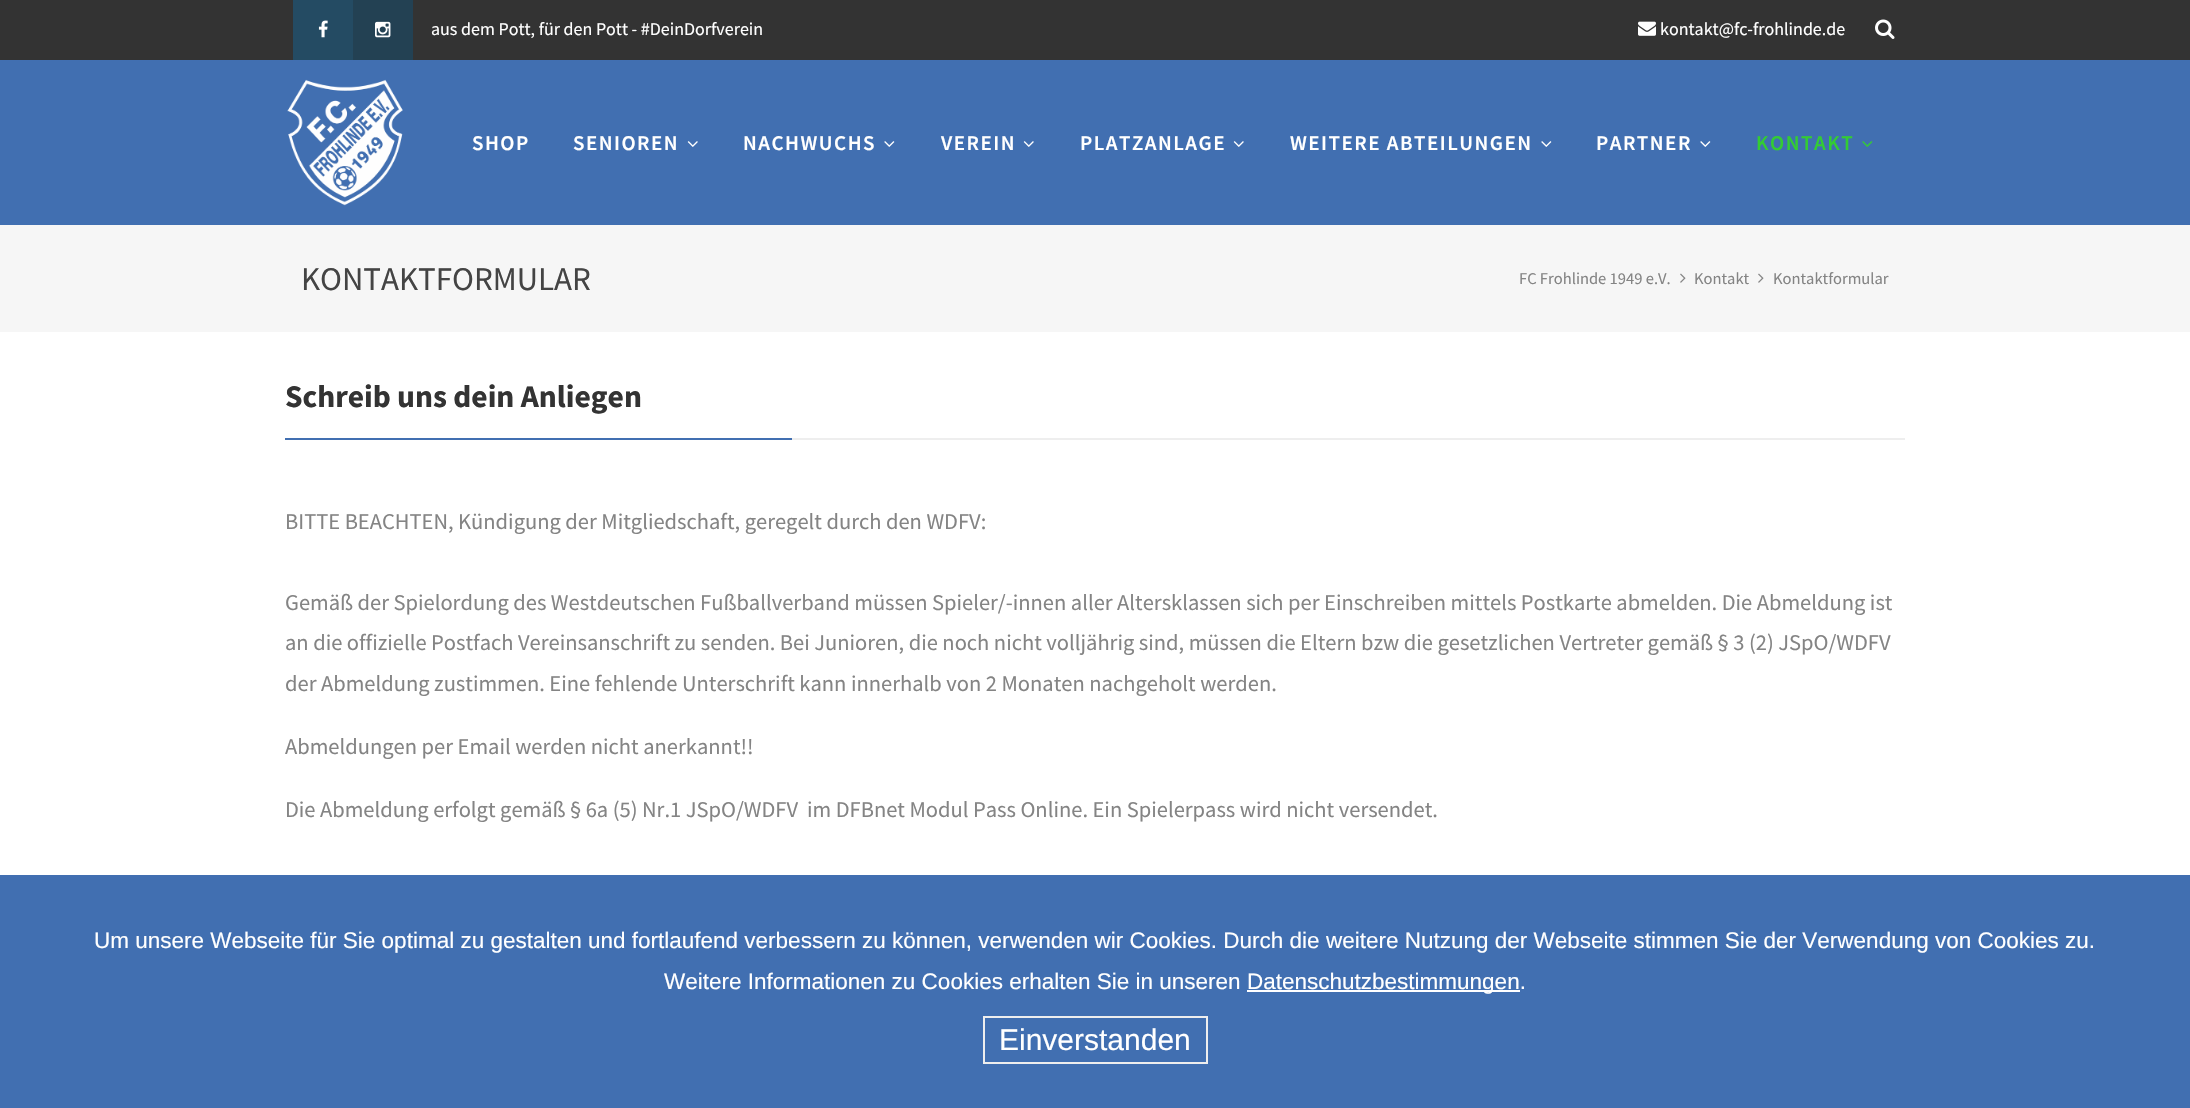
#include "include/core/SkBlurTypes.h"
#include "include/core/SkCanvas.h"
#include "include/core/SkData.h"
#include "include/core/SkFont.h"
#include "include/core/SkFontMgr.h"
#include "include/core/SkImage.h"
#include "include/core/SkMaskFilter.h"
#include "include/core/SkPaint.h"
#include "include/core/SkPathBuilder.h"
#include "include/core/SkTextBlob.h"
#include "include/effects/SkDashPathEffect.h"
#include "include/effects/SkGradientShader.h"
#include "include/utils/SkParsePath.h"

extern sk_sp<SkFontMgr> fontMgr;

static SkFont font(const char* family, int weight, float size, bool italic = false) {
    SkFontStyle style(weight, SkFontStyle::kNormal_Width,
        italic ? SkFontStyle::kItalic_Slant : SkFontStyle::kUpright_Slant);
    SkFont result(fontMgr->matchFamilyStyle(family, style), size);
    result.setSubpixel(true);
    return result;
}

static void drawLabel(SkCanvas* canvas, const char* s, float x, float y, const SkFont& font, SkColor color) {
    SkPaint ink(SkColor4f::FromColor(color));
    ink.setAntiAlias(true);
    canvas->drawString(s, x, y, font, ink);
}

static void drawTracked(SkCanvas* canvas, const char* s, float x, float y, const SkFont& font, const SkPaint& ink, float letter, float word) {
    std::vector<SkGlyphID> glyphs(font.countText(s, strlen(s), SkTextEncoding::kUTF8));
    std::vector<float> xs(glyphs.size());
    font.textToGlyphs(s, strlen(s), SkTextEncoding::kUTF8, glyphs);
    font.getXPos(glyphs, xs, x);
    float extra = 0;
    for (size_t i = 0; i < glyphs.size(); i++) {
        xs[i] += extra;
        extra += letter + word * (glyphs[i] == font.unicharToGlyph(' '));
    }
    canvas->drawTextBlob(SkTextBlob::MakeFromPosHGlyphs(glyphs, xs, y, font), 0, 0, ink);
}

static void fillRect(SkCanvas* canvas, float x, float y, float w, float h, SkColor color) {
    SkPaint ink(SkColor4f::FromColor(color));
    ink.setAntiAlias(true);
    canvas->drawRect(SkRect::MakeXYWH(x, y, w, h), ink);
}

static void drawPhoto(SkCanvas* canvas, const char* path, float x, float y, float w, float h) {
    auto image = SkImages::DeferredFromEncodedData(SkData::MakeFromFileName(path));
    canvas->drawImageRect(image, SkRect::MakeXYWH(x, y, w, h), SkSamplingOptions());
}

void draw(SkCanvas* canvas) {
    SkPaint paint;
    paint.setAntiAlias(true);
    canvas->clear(0xFFFFFFFF);
    fillRect(canvas, 0, 60, 2190, 165, 0xFF416FB1);
    fillRect(canvas, 0, 0, 2190, 60, 0xFF333333);
    fillRect(canvas, 293, 0, 60, 60, 0xFF244B63);
    drawPhoto(canvas, "assets/img1.png", 318, 20, 10, 18);
    fillRect(canvas, 353, 0, 60, 60, 0xFF234153);
    drawPhoto(canvas, "assets/img2.png", 375, 21, 16, 17);
    SkFont font1 = font("Source Sans Pro", 400, 18);
    drawLabel(canvas, "aus dem Pott, für den Pott - #DeinDorfverein", 431, 35, font1, 0xFFFFFFFF);
    drawPhoto(canvas, "assets/img3.png", 1638, 21, 18, 15);
    drawLabel(canvas, "kontakt@fc-frohlinde.de", 1660, 35, font1, 0xFFFFFFFF);
    drawPhoto(canvas, "assets/img4.png", 1875, 19, 20, 20);
    drawPhoto(canvas, "assets/img5.png", 287, 79, 116, 127);
    SkFont font2 = font("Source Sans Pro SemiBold", 600, 21);
    paint.setColor(0xFFFFFFFF);
    drawTracked(canvas, "SHOP", 472, 150, font2, paint, 1.5f, 0);
    drawTracked(canvas, "SENIOREN", 573, 150, font2, paint, 1.5f, 0);
    drawPhoto(canvas, "assets/img6.png", 687, 141, 11, 6);
    drawTracked(canvas, "NACHWUCHS", 743, 150, font2, paint, 1.5f, 0);
    drawPhoto(canvas, "assets/img7.png", 884, 141, 11, 6);
    drawTracked(canvas, "VEREIN", 941, 150, font2, paint, 1.5f, 0);
    drawPhoto(canvas, "assets/img6.png", 1023, 141, 11, 6);
    drawTracked(canvas, "PLATZANLAGE", 1080, 150, font2, paint, 1.5f, 0);
    drawPhoto(canvas, "assets/img6.png", 1233, 141, 11, 6);
    drawTracked(canvas, "WEITERE ABTEILUNGEN", 1290, 150, font2, paint, 1.5f, 0);
    drawPhoto(canvas, "assets/img7.png", 1541, 141, 11, 6);
    drawTracked(canvas, "PARTNER", 1596, 150, font2, paint, 1.5f, 0);
    drawPhoto(canvas, "assets/img7.png", 1700, 141, 11, 6);
    paint.setColor(0xFF33CC33);
    drawTracked(canvas, "KONTAKT", 1756, 150, font2, paint, 1.5f, 0);
    drawPhoto(canvas, "assets/img8.png", 1862, 141, 11, 6);
    fillRect(canvas, 0, 225, 2190, 107, 0xFFF6F6F6);
    SkFont font3 = font("Source Sans Pro", 400, 33);
    drawLabel(canvas, "KONTAKTFORMULAR", 301, 290, font3, 0xFF444444);
    SkFont font4 = font("Source Sans Pro", 400, 16.5f);
    drawLabel(canvas, "FC Frohlinde 1949 e.V.", 1519, 284, font4, 0xFF848484);
    drawPhoto(canvas, "assets/img9.png", 1680, 273, 6, 10);
    drawLabel(canvas, "Kontakt", 1694, 284, font4, 0xFF848484);
    drawPhoto(canvas, "assets/img9.png", 1758, 273, 6, 10);
    drawLabel(canvas, "Kontaktformular", 1773, 284, font4, 0xFF848484);
    fillRect(canvas, 792, 438, 1113, 2, 0xFFEEEEEE);
    SkFont font5 = font("Source Sans Pro", 700, 31.5f);
    drawLabel(canvas, "Schreib uns dein Anliegen", 285, 407, font5, 0xFF333333);
    fillRect(canvas, 285, 438, 507, 2, 0xFF416FB1);
    SkFont font6 = font("Source Sans Pro", 400, 22.5f);
    drawLabel(canvas, "BITTE BEACHTEN, Kündigung der Mitgliedschaft, geregelt durch den WDFV:", 285, 529, font6, 0xFF848484);
    drawLabel(canvas, "Gemäß der Spielordung des Westdeutschen Fußballverband müssen Spieler/-innen aller Altersklassen sich per Einschreiben mittels Postkarte abmelden. Die Abmeldung ist", 285, 610, font6, 0xFF848484);
    drawLabel(canvas, "an die offizielle Postfach Vereinsanschrift zu senden. Bei Junioren, die noch nicht volljährig sind, müssen die Eltern bzw die gesetzlichen Vertreter gemäß § 3 (2) JSpO/WDFV", 285, 650, font6, 0xFF848484);
    drawLabel(canvas, "der Abmeldung zustimmen. Eine fehlende Unterschrift kann innerhalb von 2 Monaten nachgeholt werden.", 285, 691, font6, 0xFF848484);
    drawLabel(canvas, "Abmeldungen per Email werden nicht anerkannt!!", 285, 754, font6, 0xFF848484);
    drawLabel(canvas, "Die Abmeldung erfolgt gemäß § 6a (5) Nr.1 JSpO/WDFV  im DFBnet Modul Pass Online. Ein Spielerpass wird nicht versendet.", 285, 817, font6, 0xFF848484);
    fillRect(canvas, 0, 875, 2190, 233, 0xFF416FB1);
    SkFont font7 = font("Liberation Sans", 400, 22.5f);
    drawLabel(canvas, "Um unsere Webseite für Sie optimal zu gestalten und fortlaufend verbessern zu können, verwenden wir Cookies. Durch die weitere Nutzung der Webseite stimmen Sie der Verwendung von Cookies zu.", 94, 948, font7, 0xFFFFFFFF);
    drawLabel(canvas, "Weitere Informationen zu Cookies erhalten Sie in unseren", 664, 989, font7, 0xFFFFFFFF);
    fillRect(canvas, 1247, 990, 273, 2, 0xFFFFFFFF);
    drawLabel(canvas, "Datenschutzbestimmungen.", 1247, 989, font7, 0xFFFFFFFF);
    paint.setStroke(true);
    paint.setStrokeWidth(2);
    paint.setColor(0xFFEEEEEE);
    canvas->drawRect(SkRect::MakeXYWH(984, 1017, 223, 46), paint);
    SkFont font8 = font("Liberation Sans", 400, 30);
    drawLabel(canvas, "Einverstanden", 999, 1050, font8, 0xFFFFFFFF);
}
